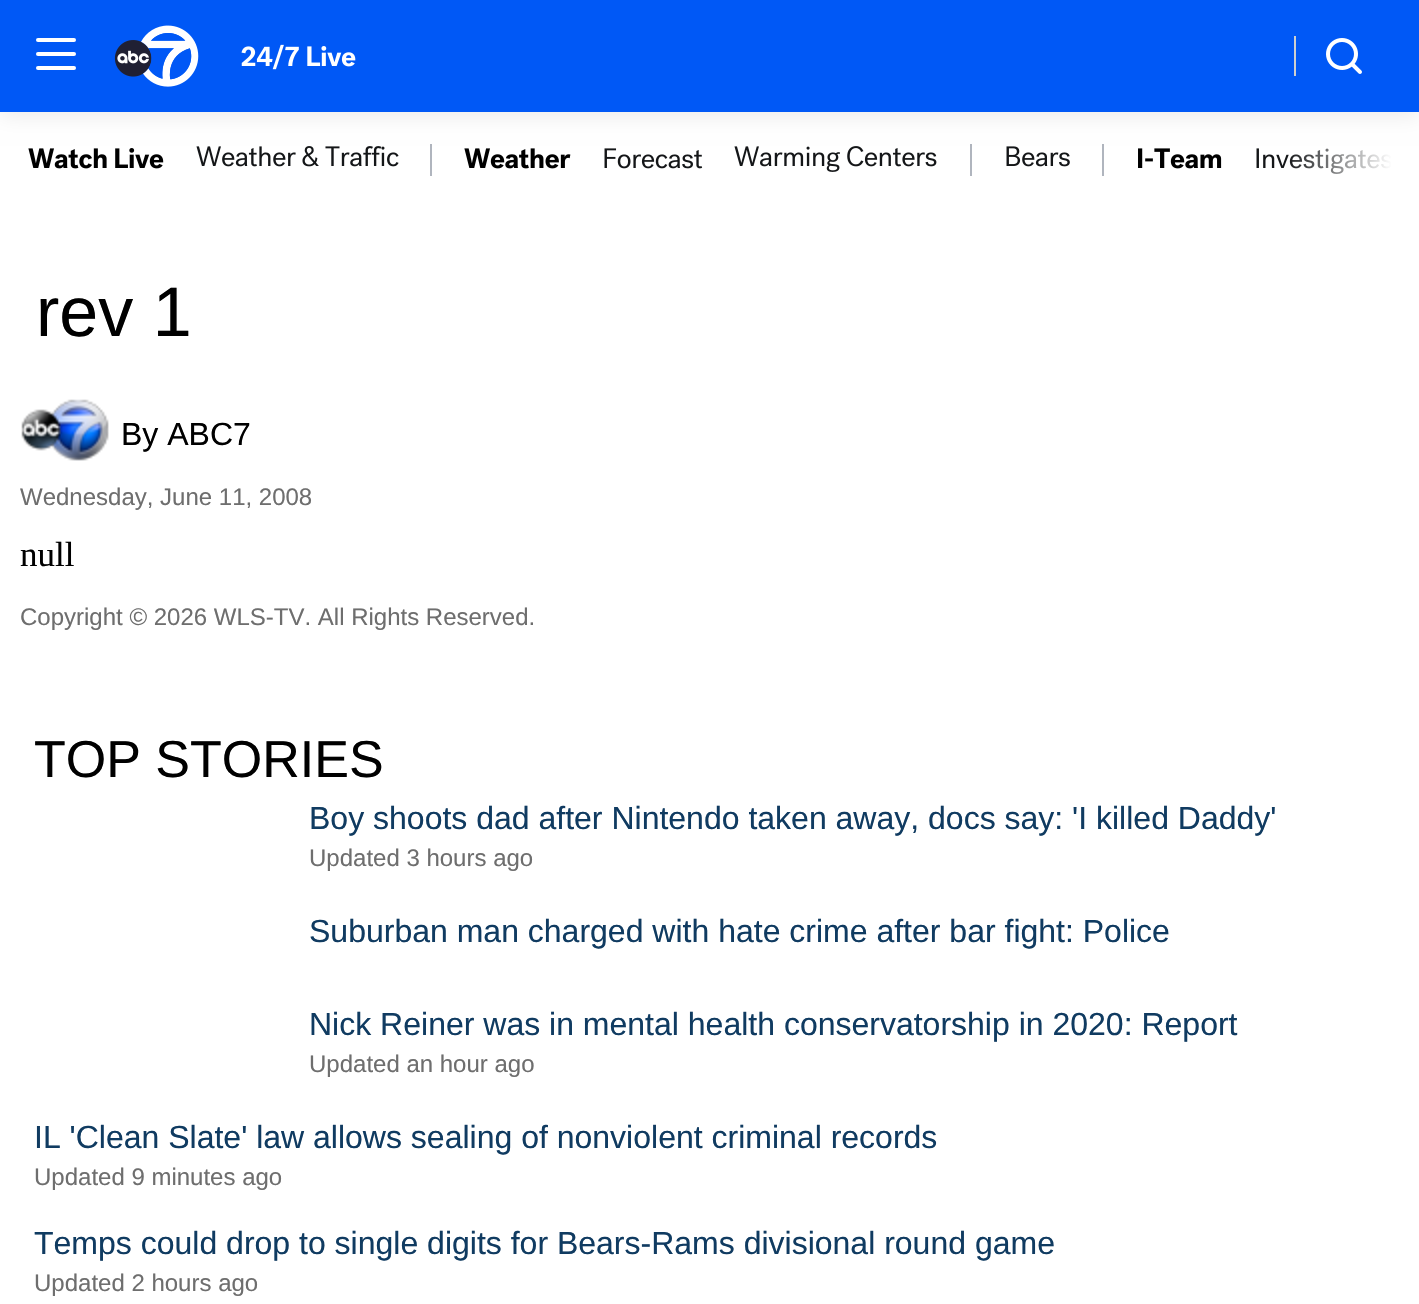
#include "include/core/SkBlurTypes.h"
#include "include/core/SkCanvas.h"
#include "include/core/SkData.h"
#include "include/core/SkFont.h"
#include "include/core/SkFontMgr.h"
#include "include/core/SkImage.h"
#include "include/core/SkMaskFilter.h"
#include "include/core/SkPaint.h"
#include "include/core/SkPathBuilder.h"
#include "include/core/SkTextBlob.h"
#include "include/effects/SkDashPathEffect.h"
#include "include/effects/SkGradientShader.h"
#include "include/utils/SkParsePath.h"

extern sk_sp<SkFontMgr> fontMgr;

static SkFont font(const char* family, int weight, float size, bool italic = false) {
    SkFontStyle style(weight, SkFontStyle::kNormal_Width,
        italic ? SkFontStyle::kItalic_Slant : SkFontStyle::kUpright_Slant);
    SkFont result(fontMgr->matchFamilyStyle(family, style), size);
    result.setSubpixel(true);
    return result;
}

static void drawLabel(SkCanvas* canvas, const char* s, float x, float y, const SkFont& font, SkColor color) {
    SkPaint ink(SkColor4f::FromColor(color));
    ink.setAntiAlias(true);
    canvas->drawString(s, x, y, font, ink);
}

static void fillRect(SkCanvas* canvas, float x, float y, float w, float h, SkColor color) {
    SkPaint ink(SkColor4f::FromColor(color));
    ink.setAntiAlias(true);
    canvas->drawRect(SkRect::MakeXYWH(x, y, w, h), ink);
}

static void fillRRect(SkCanvas* canvas, float x, float y, float w, float h, float radius, SkColor color) {
    SkPaint ink(SkColor4f::FromColor(color));
    ink.setAntiAlias(true);
    canvas->drawRoundRect(SkRect::MakeXYWH(x, y, w, h), radius, radius, ink);
}

static void drawPhoto(SkCanvas* canvas, const char* path, float x, float y, float w, float h) {
    auto image = SkImages::DeferredFromEncodedData(SkData::MakeFromFileName(path));
    canvas->drawImageRect(image, SkRect::MakeXYWH(x, y, w, h), SkSamplingOptions());
}

void draw(SkCanvas* canvas) {
    SkPaint paint;
    paint.setAntiAlias(true);
    canvas->clear(0xFFFFFFFF);
    drawPhoto(canvas, "assets/img5.png", 196, 146, 203, 21);
    fillRect(canvas, 430, 144, 2, 32, 0xFFB0B5BE);
    drawPhoto(canvas, "assets/img8.png", 734, 146, 203, 26);
    fillRect(canvas, 970, 144, 2, 32, 0xFFB0B5BE);
    drawPhoto(canvas, "assets/img9.png", 1006, 146, 64, 21);
    fillRect(canvas, 1102, 144, 2, 32, 0xFFB0B5BE);
    paint.setColor(0x14000000);
    paint.setMaskFilter(SkMaskFilter::MakeBlur(kNormal_SkBlurStyle, 10));
    canvas->drawRect(SkRect::MakeXYWH(0, 4, 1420, 112), paint);
    paint.setMaskFilter(nullptr);
    fillRect(canvas, 0, 0, 1419, 112, 0xFF0058F6);
    fillRRect(canvas, 36, 52, 40, 4, 2, 0xFFFFFFFF);
    fillRRect(canvas, 36, 38, 40, 4, 2, 0xFFFFFFFF);
    fillRRect(canvas, 36, 66, 40, 4, 2, 0xFFFFFFFF);
    drawPhoto(canvas, "assets/img1.png", 114, 25, 85, 62);
    drawPhoto(canvas, "assets/img2.png", 241, 44, 115, 26);
    fillRect(canvas, 1294, 36, 2, 40, 0xFFCECFCF);
    drawPhoto(canvas, "assets/img3.png", 1326, 38, 36, 36);
    drawPhoto(canvas, "assets/img4.png", 28, 148, 136, 21);
    drawPhoto(canvas, "assets/img6.png", 464, 148, 107, 21);
    drawPhoto(canvas, "assets/img7.png", 604, 148, 99, 21);
    drawPhoto(canvas, "assets/img10.png", 1138, 148, 84, 21);
    drawPhoto(canvas, "assets/img11.png", 1256, 148, 135, 26);
    {
        const SkColor colors[] = {0xFFFFFFFF, 0x00FFFFFF};
        const float stops[] = {0, 1};
        const SkPoint ends[] = {{1392, 160}, {1286, 160}};
        paint.setShader(SkGradientShader::MakeLinear(ends, colors, stops, 2, SkTileMode::kClamp));
        paint.setAlpha(255);
    }
    canvas->drawRect(SkRect::MakeXYWH(1288, 148, 103, 26), paint);
    SkFont font1 = font("Liberation Sans", 400, 70);
    drawLabel(canvas, "rev 1", 36, 336, font1, 0xFF000000);
    drawPhoto(canvas, "assets/img12.png", 21, 399, 88, 62);
    SkFont font2 = font("Liberation Sans", 400, 32);
    drawLabel(canvas, "By ABC7", 121, 445, font2, 0xFF000000);
    SkFont font3 = font("Liberation Sans", 400, 24);
    drawLabel(canvas, "Wednesday, June 11, 2008", 20, 505, font3, 0xFF6E6E6E);
    SkFont font4 = font("Liberation Serif", 400, 35);
    drawLabel(canvas, "null", 20, 566, font4, 0xFF000000);
    drawLabel(canvas, "Copyright © 2026 WLS-TV. All Rights Reserved.", 20, 625, font3, 0xFF6E6E6E);
    SkFont font5 = font("Liberation Sans", 400, 52);
    drawLabel(canvas, "TOP STORIES", 34, 777, font5, 0xFF000000);
    drawLabel(canvas, "Boy shoots dad after Nintendo taken away, docs say: 'I killed Daddy'", 309, 829, font2, 0xFF103B61);
    drawLabel(canvas, "Updated 3 hours ago", 309, 866, font3, 0xFF6E6E6E);
    drawLabel(canvas, "Suburban man charged with hate crime after bar fight: Police", 309, 942, font2, 0xFF103B61);
    drawLabel(canvas, "Nick Reiner was in mental health conservatorship in 2020: Report", 309, 1035, font2, 0xFF103B61);
    drawLabel(canvas, "Updated an hour ago", 309, 1072, font3, 0xFF6E6E6E);
    drawLabel(canvas, "IL 'Clean Slate' law allows sealing of nonviolent criminal records", 34, 1148, font2, 0xFF103B61);
    drawLabel(canvas, "Updated 9 minutes ago", 34, 1185, font3, 0xFF6E6E6E);
    drawLabel(canvas, "Temps could drop to single digits for Bears-Rams divisional round game", 34, 1254, font2, 0xFF103B61);
    drawLabel(canvas, "Updated 2 hours ago", 34, 1291, font3, 0xFF6E6E6E);
}
